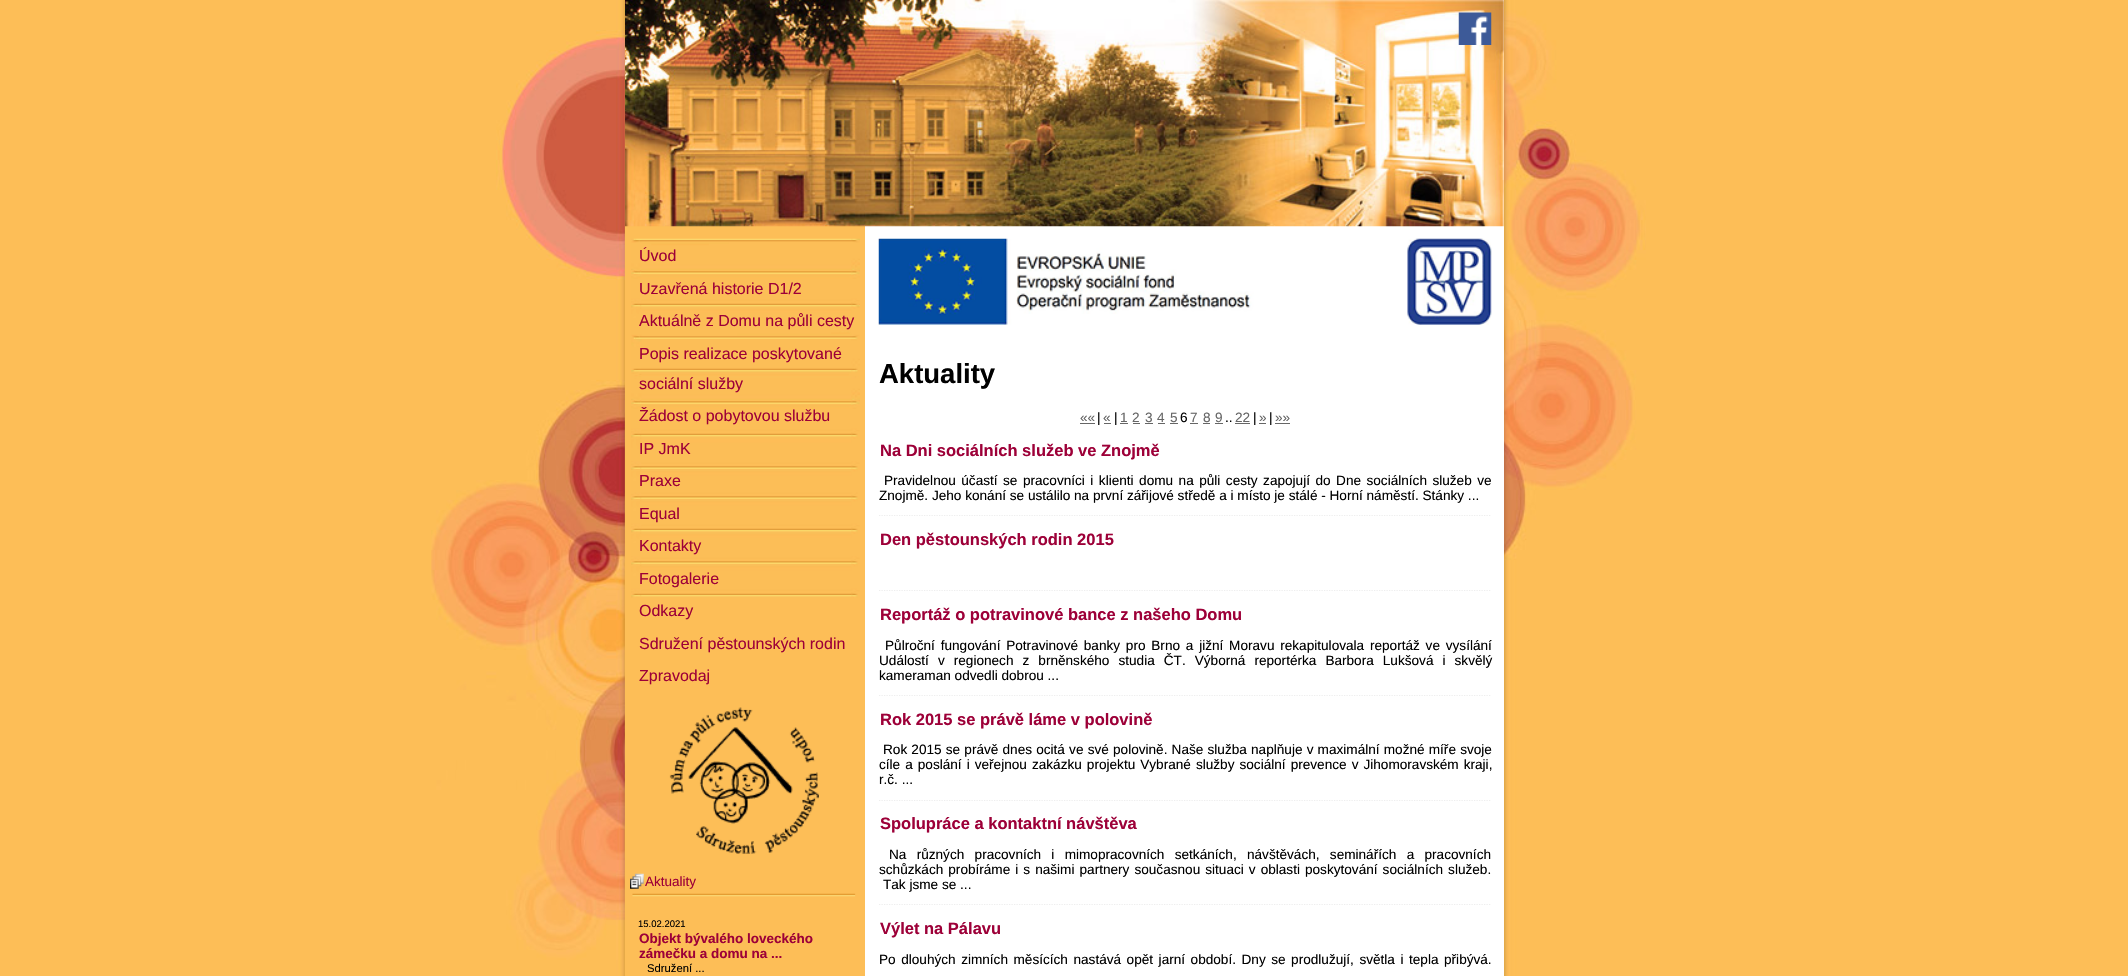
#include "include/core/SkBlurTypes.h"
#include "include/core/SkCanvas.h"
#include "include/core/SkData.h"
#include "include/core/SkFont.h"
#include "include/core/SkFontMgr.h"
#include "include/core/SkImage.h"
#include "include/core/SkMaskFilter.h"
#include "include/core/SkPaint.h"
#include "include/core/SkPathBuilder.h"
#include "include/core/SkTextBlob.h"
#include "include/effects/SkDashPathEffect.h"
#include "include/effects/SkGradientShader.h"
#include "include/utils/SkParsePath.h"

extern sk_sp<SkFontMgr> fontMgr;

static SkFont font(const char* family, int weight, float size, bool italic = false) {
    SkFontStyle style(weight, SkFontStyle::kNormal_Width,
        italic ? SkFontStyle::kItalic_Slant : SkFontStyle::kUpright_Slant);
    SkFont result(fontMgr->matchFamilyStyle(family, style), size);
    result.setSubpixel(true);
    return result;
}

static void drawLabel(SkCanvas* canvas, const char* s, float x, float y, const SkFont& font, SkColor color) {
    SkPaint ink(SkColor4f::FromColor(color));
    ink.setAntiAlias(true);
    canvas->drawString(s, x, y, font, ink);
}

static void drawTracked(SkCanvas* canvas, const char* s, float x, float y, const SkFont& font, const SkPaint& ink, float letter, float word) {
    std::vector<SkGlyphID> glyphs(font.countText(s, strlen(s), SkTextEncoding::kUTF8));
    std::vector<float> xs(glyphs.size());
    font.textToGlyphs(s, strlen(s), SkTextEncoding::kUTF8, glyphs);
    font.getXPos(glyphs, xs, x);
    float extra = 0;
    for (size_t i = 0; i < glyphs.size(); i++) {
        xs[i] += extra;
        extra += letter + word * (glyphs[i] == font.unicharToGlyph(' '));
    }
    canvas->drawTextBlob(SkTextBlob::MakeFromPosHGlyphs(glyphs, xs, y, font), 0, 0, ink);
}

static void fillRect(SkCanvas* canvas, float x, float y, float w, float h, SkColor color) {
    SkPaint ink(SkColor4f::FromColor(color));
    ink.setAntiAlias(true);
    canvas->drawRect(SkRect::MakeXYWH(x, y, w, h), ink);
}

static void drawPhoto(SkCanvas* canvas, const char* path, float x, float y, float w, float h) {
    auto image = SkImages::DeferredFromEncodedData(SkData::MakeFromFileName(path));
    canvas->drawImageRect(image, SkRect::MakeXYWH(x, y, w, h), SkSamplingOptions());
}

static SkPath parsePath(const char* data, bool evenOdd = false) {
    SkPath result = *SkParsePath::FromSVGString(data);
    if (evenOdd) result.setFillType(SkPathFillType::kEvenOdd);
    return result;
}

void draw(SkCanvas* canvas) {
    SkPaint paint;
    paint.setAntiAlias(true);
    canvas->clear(0xFFFDBE57);
    drawPhoto(canvas, "assets/img1.png", 431, 0, 1215, 976);
    fillRect(canvas, 865, 0, 639, 976, 0xFFFFFFFF);
    fillRect(canvas, 625, 226, 2, 750, 0xFFFDBE57);
    drawPhoto(canvas, "assets/img2.png", 625, 0, 879, 227);
    drawPhoto(canvas, "assets/img3.png", 1458, 12, 34, 33);
    drawPhoto(canvas, "assets/img4.png", 631, 238, 229, 360);
    SkFont font1 = font("Liberation Sans", 400, 16);
    drawLabel(canvas, "Úvod", 639, 261, font1, 0xFF9D0038);
    drawLabel(canvas, "Uzavřená historie D1/2", 639, 294, font1, 0xFF9D0038);
    drawLabel(canvas, "Aktuálně z Domu na půli cesty", 639, 326, font1, 0xFF9D0038);
    drawLabel(canvas, "Popis realizace poskytované", 639, 359, font1, 0xFF9D0038);
    drawLabel(canvas, "sociální služby", 639, 389, font1, 0xFF9D0038);
    drawLabel(canvas, "Žádost o pobytovou službu", 639, 421, font1, 0xFF9D0038);
    drawLabel(canvas, "IP JmK", 639, 454, font1, 0xFF9D0038);
    drawLabel(canvas, "Praxe", 639, 486, font1, 0xFF9D0038);
    drawLabel(canvas, "Equal", 639, 519, font1, 0xFF9D0038);
    drawLabel(canvas, "Kontakty", 639, 551, font1, 0xFF9D0038);
    drawLabel(canvas, "Fotogalerie", 639, 584, font1, 0xFF9D0038);
    drawLabel(canvas, "Odkazy", 639, 616, font1, 0xFF9D0038);
    drawLabel(canvas, "Sdružení pěstounských rodin", 639, 649, font1, 0xFF9D0038);
    drawLabel(canvas, "Zpravodaj", 639, 681, font1, 0xFF9D0038);
    drawPhoto(canvas, "assets/img5.png", 669, 707, 150, 147);
    drawPhoto(canvas, "assets/img6.png", 630, 873, 14, 16);
    SkFont font2 = font("Liberation Sans", 400, 13.5f);
    drawLabel(canvas, "Aktuality", 645, 886, font2, 0xFF9D0038);
    drawPhoto(canvas, "assets/img7.png", 632, 893, 224, 4);
    SkFont font3 = font("Liberation Sans", 400, 9.5f);
    drawLabel(canvas, "15.02.2021", 638, 927, font3, 0xFF000000);
    SkFont font4 = font("Liberation Sans", 700, 13.5f);
    drawLabel(canvas, "Objekt bývalého loveckého", 639, 943, font4, 0xFF9D0038);
    drawLabel(canvas, "zámečku a domu na ...", 639, 958, font4, 0xFF9D0038);
    SkFont font5 = font("Liberation Sans", 400, 11.25f);
    drawLabel(canvas, "Sdružení ...", 647, 972, font5, 0xFF000000);
    drawPhoto(canvas, "assets/img8.png", 878, 238, 614, 87);
    SkFont font6 = font("Liberation Sans", 700, 27.5f);
    drawLabel(canvas, "Aktuality", 879, 383, font6, 0xFF000000);
    SkFont font7 = font("Liberation Sans", 400, 13.6f);
    drawLabel(canvas, "««", 1080, 422, font7, 0xFF666666);
    fillRect(canvas, 1080, 423, 15, 1, 0xFF666666);
    drawLabel(canvas, "|", 1097, 422, font7, 0xFF000000);
    drawLabel(canvas, "«", 1103, 422, font7, 0xFF666666);
    fillRect(canvas, 1104, 423, 7, 1, 0xFF666666);
    drawLabel(canvas, "|", 1114, 422, font7, 0xFF000000);
    drawLabel(canvas, "1", 1120, 422, font7, 0xFF666666);
    fillRect(canvas, 1120, 423, 8, 1, 0xFF666666);
    drawLabel(canvas, "2", 1132, 422, font7, 0xFF666666);
    fillRect(canvas, 1133, 423, 7, 1, 0xFF666666);
    drawLabel(canvas, "3", 1145, 422, font7, 0xFF666666);
    fillRect(canvas, 1145, 423, 8, 1, 0xFF666666);
    drawLabel(canvas, "4", 1157, 422, font7, 0xFF666666);
    fillRect(canvas, 1158, 423, 7, 1, 0xFF666666);
    drawLabel(canvas, "5", 1170, 422, font7, 0xFF666666);
    fillRect(canvas, 1170, 423, 8, 1, 0xFF666666);
    drawLabel(canvas, "6", 1180, 422, font7, 0xFF000000);
    drawLabel(canvas, "7", 1190, 422, font7, 0xFF666666);
    fillRect(canvas, 1190, 423, 8, 1, 0xFF666666);
    drawLabel(canvas, "8", 1203, 422, font7, 0xFF666666);
    fillRect(canvas, 1203, 423, 7, 1, 0xFF666666);
    drawLabel(canvas, "9", 1215, 422, font7, 0xFF666666);
    fillRect(canvas, 1215, 423, 8, 1, 0xFF666666);
    drawLabel(canvas, "..", 1225, 422, font7, 0xFF000000);
    drawLabel(canvas, "22", 1235, 422, font7, 0xFF666666);
    fillRect(canvas, 1235, 423, 15, 1, 0xFF666666);
    drawLabel(canvas, "|", 1253, 422, font7, 0xFF000000);
    drawLabel(canvas, "»", 1259, 422, font7, 0xFF666666);
    fillRect(canvas, 1259, 423, 7, 1, 0xFF666666);
    drawLabel(canvas, "|", 1269, 422, font7, 0xFF000000);
    drawLabel(canvas, "»»", 1275, 422, font7, 0xFF666666);
    fillRect(canvas, 1275, 423, 15, 1, 0xFF666666);
    SkFont font8 = font("Liberation Sans", 700, 16.5f);
    drawLabel(canvas, "Na Dni sociálních služeb ve Znojmě", 880, 456, font8, 0xFF9D0038);
    paint.setStroke(true);
    paint.setStrokeWidth(1.2f);
    paint.setColor(0xFFEEEEEE);
    paint.setPathEffect(SkDashPathEffect::Make({{1.25f, 1.25f}}, 0));
    canvas->drawPath(parsePath("M879 515.5H1491"), paint);
    paint.setPathEffect(nullptr);
    paint.setStroke(false);
    paint.setColor(0xFF000000);
    drawTracked(canvas, "Pravidelnou účastí se pracovníci i klienti domu na půli cesty zapojují do Dne sociálních služeb ve", 884, 485, font7, paint, 0, 1.7f);
    drawLabel(canvas, "Znojmě. Jeho konání se ustálilo na první zářijové středě a i místo je stálé - Horní náměstí. Stánky ...", 879, 500, font7, 0xFF000000);
    drawLabel(canvas, "Den pěstounských rodin 2015", 880, 545, font8, 0xFF9D0038);
    paint.setStroke(true);
    paint.setColor(0xFFEEEEEE);
    paint.setPathEffect(SkDashPathEffect::Make({{1.25f, 1.25f}}, 0));
    canvas->drawPath(parsePath("M879 590.5H1491"), paint);
    paint.setPathEffect(nullptr);
    drawLabel(canvas, "Reportáž o potravinové bance z našeho Domu", 880, 620, font8, 0xFF9D0038);
    paint.setPathEffect(SkDashPathEffect::Make({{1.25f, 1.25f}}, 0));
    canvas->drawPath(parsePath("M879 695.5H1491"), paint);
    paint.setPathEffect(nullptr);
    paint.setStroke(false);
    paint.setColor(0xFF000000);
    drawTracked(canvas, "Půlroční fungování Potravinové banky pro Brno a jižní Moravu rekapitulovala reportáž ve vysílání", 885, 650, font7, paint, 0, 2);
    drawTracked(canvas, "Událostí v regionech z brněnského studia ČT. Výborná reportérka Barbora Lukšová i skvělý", 879, 665, font7, paint, 0, 5.25f);
    drawLabel(canvas, "kameraman odvedli dobrou ...", 879, 680, font7, 0xFF000000);
    drawLabel(canvas, "Rok 2015 se právě láme v polovině", 880, 725, font8, 0xFF9D0038);
    paint.setStroke(true);
    paint.setColor(0xFFEEEEEE);
    paint.setPathEffect(SkDashPathEffect::Make({{1.25f, 1.25f}}, 0));
    canvas->drawPath(parsePath("M879 800.5H1491"), paint);
    paint.setPathEffect(nullptr);
    paint.setStroke(false);
    paint.setColor(0xFF000000);
    drawTracked(canvas, "Rok 2015 se právě dnes ocitá ve své polovině. Naše služba naplňuje v maximální možné míře svoje", 883, 754, font7, paint, 0, 0.4f);
    drawTracked(canvas, "cíle a poslání i veřejnou zakázku projektu Vybrané služby sociální prevence v Jihomoravském kraji,", 879, 769, font7, paint, 0, 1.25f);
    drawLabel(canvas, "r.č. ...", 879, 784, font7, 0xFF000000);
    drawLabel(canvas, "Spolupráce a kontaktní návštěva", 880, 829, font8, 0xFF9D0038);
    paint.setStroke(true);
    paint.setColor(0xFFEEEEEE);
    paint.setPathEffect(SkDashPathEffect::Make({{1.25f, 1.25f}}, 0));
    canvas->drawPath(parsePath("M879 904.5H1491"), paint);
    paint.setPathEffect(nullptr);
    paint.setStroke(false);
    paint.setColor(0xFF000000);
    drawTracked(canvas, "Na různých pracovních i mimopracovních setkáních, návštěvách, seminářích a pracovních", 889, 859, font7, paint, 0, 6.5f);
    drawTracked(canvas, "schůzkách probíráme i s našimi partnery současnou situaci v oblasti poskytování sociálních služeb.", 879, 874, font7, paint, 0, 1.25f);
    drawLabel(canvas, "Tak jsme se ...", 883, 889, font7, 0xFF000000);
    drawLabel(canvas, "Výlet na Pálavu", 880, 934, font8, 0xFF9D0038);
    drawTracked(canvas, "Po dlouhých zimních měsících nastává opět jarní období. Dny se prodlužují, světla i tepla přibývá.", 879, 964, font7, paint, 0, 1.75f);
}
